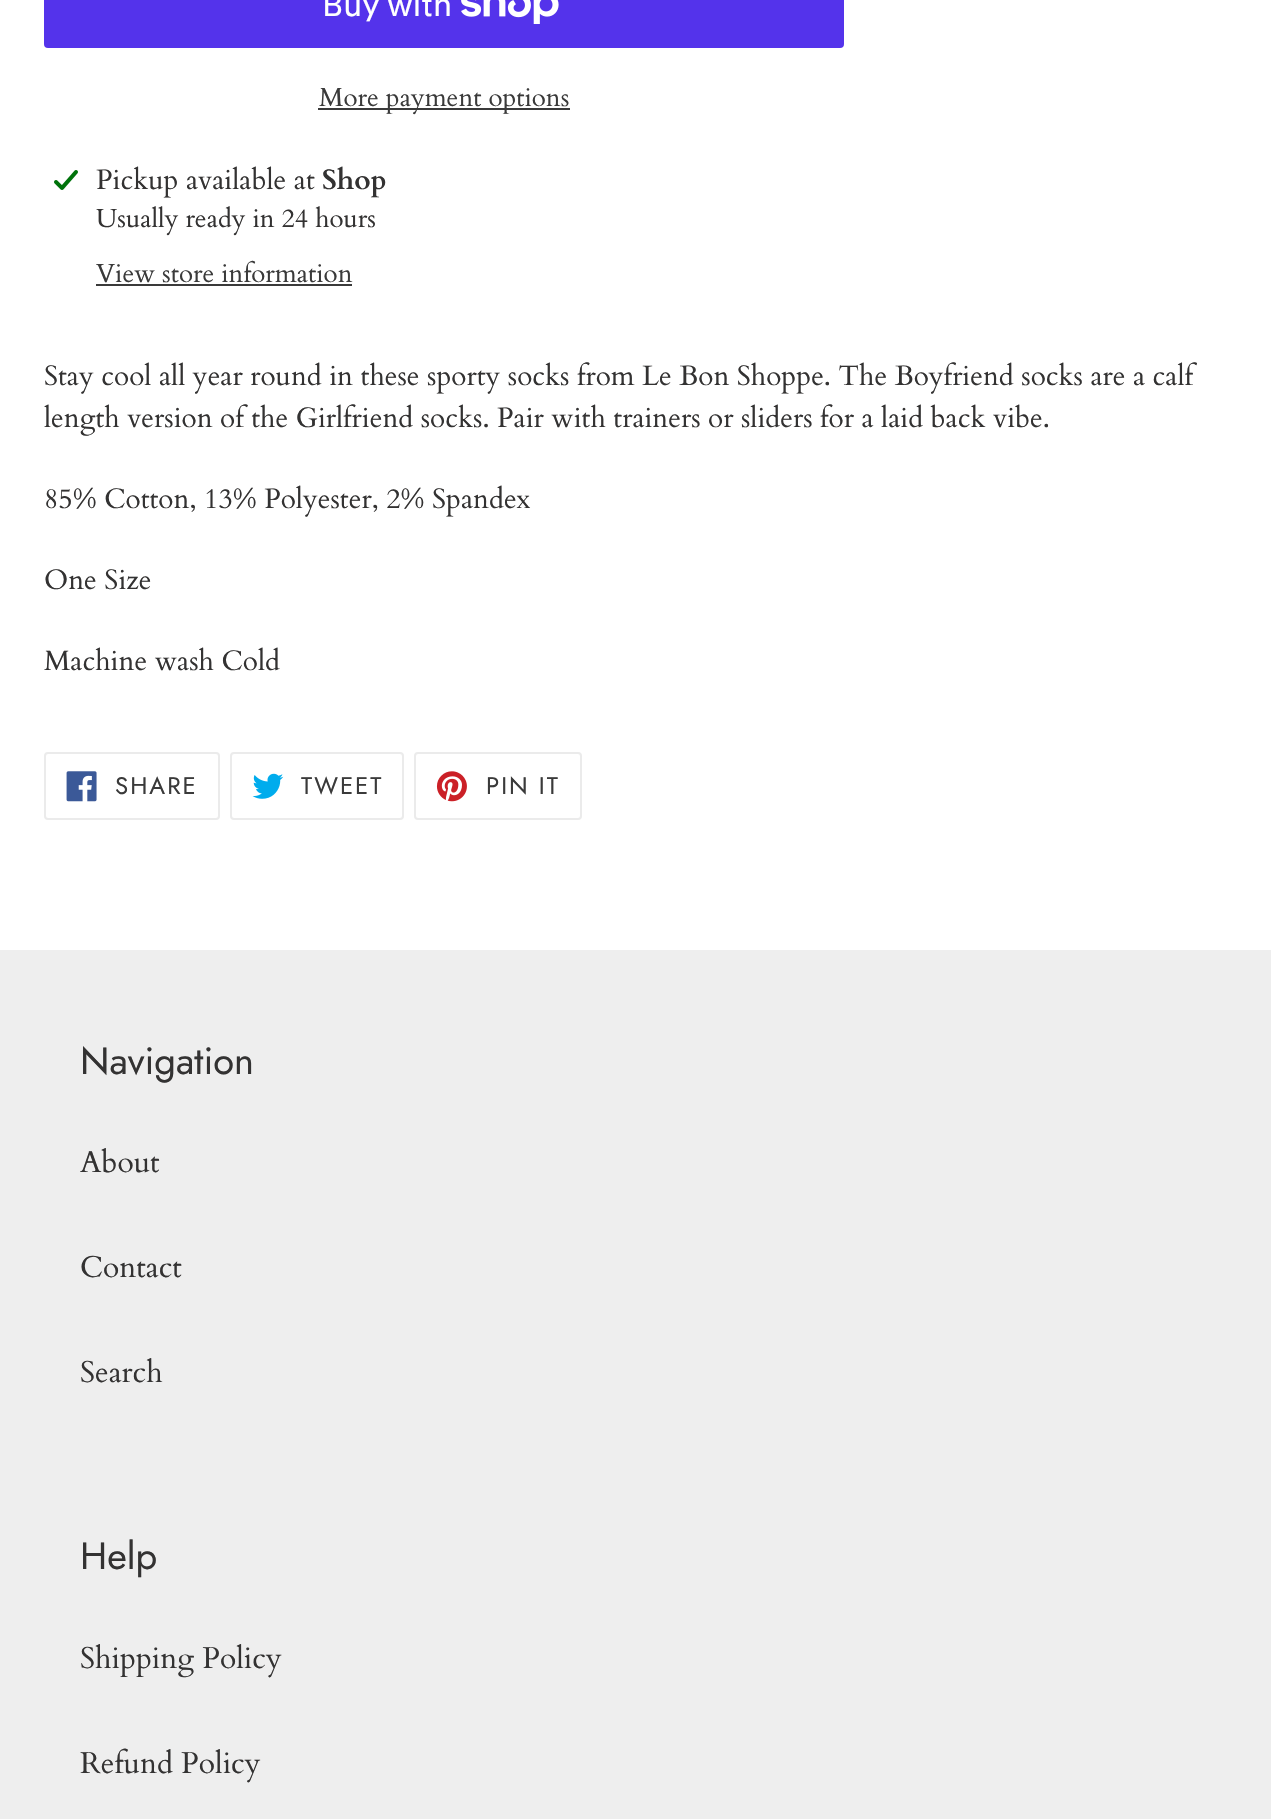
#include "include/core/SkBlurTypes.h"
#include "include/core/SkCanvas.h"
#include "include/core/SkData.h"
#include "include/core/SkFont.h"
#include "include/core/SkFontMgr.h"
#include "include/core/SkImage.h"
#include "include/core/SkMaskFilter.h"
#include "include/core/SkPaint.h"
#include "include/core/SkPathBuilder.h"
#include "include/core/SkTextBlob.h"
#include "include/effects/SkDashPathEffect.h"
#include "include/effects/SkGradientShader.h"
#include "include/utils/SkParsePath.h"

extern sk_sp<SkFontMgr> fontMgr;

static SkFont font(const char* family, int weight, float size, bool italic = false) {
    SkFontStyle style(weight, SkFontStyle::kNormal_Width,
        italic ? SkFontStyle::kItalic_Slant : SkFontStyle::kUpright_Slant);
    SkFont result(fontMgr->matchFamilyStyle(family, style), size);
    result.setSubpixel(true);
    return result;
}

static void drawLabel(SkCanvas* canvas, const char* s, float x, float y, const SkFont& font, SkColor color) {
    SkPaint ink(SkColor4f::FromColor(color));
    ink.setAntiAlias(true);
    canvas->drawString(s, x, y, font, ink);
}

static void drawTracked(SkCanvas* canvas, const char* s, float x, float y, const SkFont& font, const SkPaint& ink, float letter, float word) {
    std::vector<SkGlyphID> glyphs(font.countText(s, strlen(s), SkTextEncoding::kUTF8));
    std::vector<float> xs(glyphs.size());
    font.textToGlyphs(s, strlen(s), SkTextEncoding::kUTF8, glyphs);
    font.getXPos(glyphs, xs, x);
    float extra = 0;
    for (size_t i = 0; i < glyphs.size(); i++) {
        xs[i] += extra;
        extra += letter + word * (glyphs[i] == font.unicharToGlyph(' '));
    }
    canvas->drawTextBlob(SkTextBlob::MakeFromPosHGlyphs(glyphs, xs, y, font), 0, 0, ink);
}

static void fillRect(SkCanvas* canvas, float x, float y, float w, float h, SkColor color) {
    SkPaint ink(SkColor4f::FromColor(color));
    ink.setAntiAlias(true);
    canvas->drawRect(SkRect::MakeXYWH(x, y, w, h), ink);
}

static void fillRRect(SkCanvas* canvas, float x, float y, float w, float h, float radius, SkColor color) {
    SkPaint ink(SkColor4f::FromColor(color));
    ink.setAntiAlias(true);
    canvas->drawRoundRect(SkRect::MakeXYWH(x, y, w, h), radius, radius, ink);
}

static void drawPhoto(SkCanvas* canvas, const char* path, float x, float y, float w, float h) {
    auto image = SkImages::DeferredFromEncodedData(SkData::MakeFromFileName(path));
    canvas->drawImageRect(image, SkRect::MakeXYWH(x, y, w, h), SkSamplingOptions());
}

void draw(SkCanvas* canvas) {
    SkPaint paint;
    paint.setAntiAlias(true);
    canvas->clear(0xFFFFFFFF);
    fillRRect(canvas, 44, -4, 800, 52, 4, 0xFF5433EB);
    SkFont font1 = font("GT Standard", 400, 32);
    drawLabel(canvas, "Buy with", 322, 16, font1, 0xFFFFFFFF);
    drawPhoto(canvas, "assets/img1.png", 461, 0, 98, 24);
    fillRect(canvas, 318, 108, 252, 2, 0xFF3A3A3A);
    SkFont font2 = font("Cardo", 400, 26);
    drawLabel(canvas, "More payment options", 319, 106, font2, 0xFF3A3A3A);
    drawPhoto(canvas, "assets/img2.png", 54, 170, 24, 20);
    SkFont font3 = font("Cardo", 400, 28);
    drawLabel(canvas, "Pickup available at", 96, 189, font3, 0xFF333232);
    SkFont font4 = font("Cardo", 700, 28);
    drawLabel(canvas, "Shop", 322, 189, font4, 0xFF333232);
    drawLabel(canvas, "Usually ready in 24 hours", 96, 227, font2, 0xFF333232);
    drawLabel(canvas, "View store information", 96, 282, font2, 0xFF3A3A3A);
    fillRect(canvas, 96, 284, 256, 2, 0xFF3A3A3A);
    drawLabel(canvas, "Stay cool all year round in these sporty socks from Le Bon Shoppe. The Boyfriend socks are a calf", 44, 385, font3, 0xFF333232);
    drawLabel(canvas, "length version of the Girlfriend socks. Pair with trainers or sliders for a laid back vibe.", 44, 427, font3, 0xFF333232);
    drawLabel(canvas, "85% Cotton, 13% Polyester, 2% Spandex", 44, 508, font3, 0xFF333232);
    drawLabel(canvas, "One Size", 44, 589, font3, 0xFF333232);
    drawLabel(canvas, "Machine wash Cold", 44, 670, font3, 0xFF333232);
    paint.setStroke(true);
    paint.setStrokeWidth(2);
    paint.setColor(0xFFEBEBEB);
    canvas->drawRoundRect(SkRect::MakeXYWH(45, 753, 174, 66), 3, 3, paint);
    drawPhoto(canvas, "assets/img3.png", 66, 771, 31, 31);
    SkFont font5 = font("Jost", 400, 24);
    paint.setStroke(false);
    paint.setColor(0xFF3A3A3A);
    drawTracked(canvas, "SHARE", 115, 794, font5, paint, 2, 0);
    paint.setStroke(true);
    paint.setColor(0xFFEBEBEB);
    canvas->drawRoundRect(SkRect::MakeXYWH(231, 753, 172, 66), 3, 3, paint);
    drawPhoto(canvas, "assets/img4.png", 252, 773, 32, 26);
    paint.setStroke(false);
    paint.setColor(0xFF3A3A3A);
    drawTracked(canvas, "TWEET", 301, 794, font5, paint, 2, 0);
    paint.setStroke(true);
    paint.setColor(0xFFEBEBEB);
    canvas->drawRoundRect(SkRect::MakeXYWH(415, 753, 166, 66), 3, 3, paint);
    drawPhoto(canvas, "assets/img5.png", 436, 771, 31, 31);
    paint.setStroke(false);
    paint.setColor(0xFF3A3A3A);
    drawTracked(canvas, "PIN IT", 486, 794, font5, paint, 2, 0);
    fillRect(canvas, 0, 950, 1271, 869, 0xFFEEEEEE);
    SkFont font6 = font("Jost", 400, 38);
    drawLabel(canvas, "Navigation", 80, 1074, font6, 0xFF333232);
    SkFont font7 = font("Cardo", 400, 30);
    drawLabel(canvas, "About", 80, 1172, font7, 0xFF333232);
    drawLabel(canvas, "Contact", 80, 1277, font7, 0xFF333232);
    drawLabel(canvas, "Search", 80, 1382, font7, 0xFF333232);
    drawLabel(canvas, "Help", 80, 1569, font6, 0xFF333232);
    drawLabel(canvas, "Shipping Policy", 80, 1668, font7, 0xFF333232);
    drawLabel(canvas, "Refund Policy", 80, 1773, font7, 0xFF333232);
}
